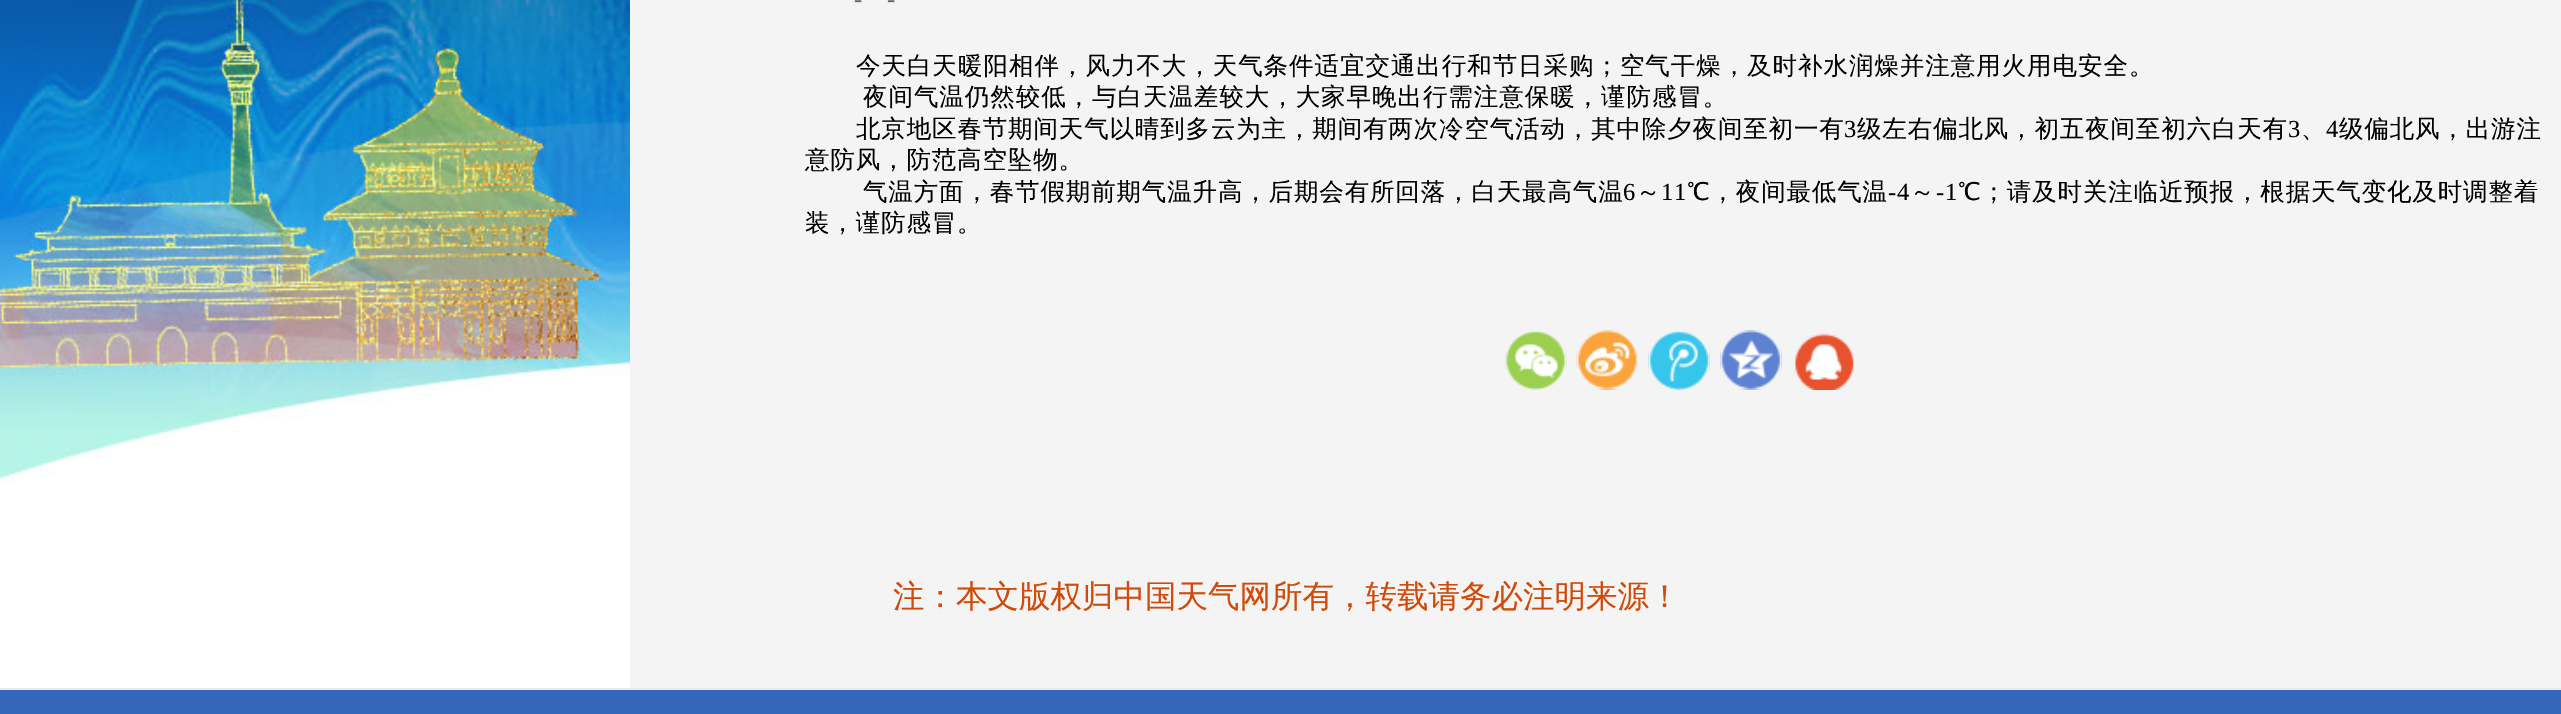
#include "include/core/SkBlurTypes.h"
#include "include/core/SkCanvas.h"
#include "include/core/SkData.h"
#include "include/core/SkFont.h"
#include "include/core/SkFontMgr.h"
#include "include/core/SkImage.h"
#include "include/core/SkMaskFilter.h"
#include "include/core/SkPaint.h"
#include "include/core/SkPathBuilder.h"
#include "include/core/SkTextBlob.h"
#include "include/effects/SkDashPathEffect.h"
#include "include/effects/SkGradientShader.h"
#include "include/utils/SkParsePath.h"

extern sk_sp<SkFontMgr> fontMgr;

static SkFont font(const char* family, int weight, float size, bool italic = false) {
    SkFontStyle style(weight, SkFontStyle::kNormal_Width,
        italic ? SkFontStyle::kItalic_Slant : SkFontStyle::kUpright_Slant);
    SkFont result(fontMgr->matchFamilyStyle(family, style), size);
    result.setSubpixel(true);
    return result;
}

static void drawLabel(SkCanvas* canvas, const char* s, float x, float y, const SkFont& font, SkColor color) {
    SkPaint ink(SkColor4f::FromColor(color));
    ink.setAntiAlias(true);
    canvas->drawString(s, x, y, font, ink);
}

static void drawTracked(SkCanvas* canvas, const char* s, float x, float y, const SkFont& font, const SkPaint& ink, float letter, float word) {
    std::vector<SkGlyphID> glyphs(font.countText(s, strlen(s), SkTextEncoding::kUTF8));
    std::vector<float> xs(glyphs.size());
    font.textToGlyphs(s, strlen(s), SkTextEncoding::kUTF8, glyphs);
    font.getXPos(glyphs, xs, x);
    float extra = 0;
    for (size_t i = 0; i < glyphs.size(); i++) {
        xs[i] += extra;
        extra += letter + word * (glyphs[i] == font.unicharToGlyph(' '));
    }
    canvas->drawTextBlob(SkTextBlob::MakeFromPosHGlyphs(glyphs, xs, y, font), 0, 0, ink);
}

static void fillRect(SkCanvas* canvas, float x, float y, float w, float h, SkColor color) {
    SkPaint ink(SkColor4f::FromColor(color));
    ink.setAntiAlias(true);
    canvas->drawRect(SkRect::MakeXYWH(x, y, w, h), ink);
}

static void drawPhoto(SkCanvas* canvas, const char* path, float x, float y, float w, float h) {
    auto image = SkImages::DeferredFromEncodedData(SkData::MakeFromFileName(path));
    canvas->drawImageRect(image, SkRect::MakeXYWH(x, y, w, h), SkSamplingOptions());
}

void draw(SkCanvas* canvas) {
    SkPaint paint;
    paint.setAntiAlias(true);
    canvas->clear(0xFFFFFFFF);
    drawPhoto(canvas, "assets/img1.png", 0, 0, 630, 485);
    fillRect(canvas, 630, 0, 1931, 688, 0xFFF4F4F4);
    SkFont font1 = font("Liberation Serif", 400, 24.5f);
    drawLabel(canvas, "-", 854, 7, font1, 0xFF666666);
    drawLabel(canvas, "-", 887, 7, font1, 0xFF666666);
    SkFont font2 = font("WenQuanYi Zen Hei", 500, 24.5f);
    paint.setColor(0xFF000000);
    drawTracked(canvas, "今天白天", 856, 74, font2, paint, 0.95f, 0);
    drawTracked(canvas, "暖阳相伴", 958, 74, font2, paint, 1, 0);
    drawTracked(canvas, "，风力不大，天气条件适宜交通出行和节日采购；空气干燥，及时补水润燥并注意用火用电安全。", 1060, 74, font2, paint, 0.95f, 0);
    drawTracked(canvas, "夜间气温仍然较低，与白天温差较大，大家早晚出行需注意保暖，谨防感冒。", 863, 105, font2, paint, 0.95f, 0);
    drawTracked(canvas, "北京地区春节期间天气以晴到多云为主，期间有两次冷空气活动，其中除夕夜间至初一有", 856, 137, font2, paint, 0.85f, 0);
    drawTracked(canvas, "3", 1844, 137, font1, paint, 0.85f, 0);
    drawTracked(canvas, "级左右偏北风，初五夜间至初六白天有", 1857, 137, font2, paint, 0.85f, 0);
    drawTracked(canvas, "3", 2288, 137, font1, paint, 0.85f, 0);
    drawTracked(canvas, "4", 2326, 137, font1, paint, 0.85f, 0);
    drawTracked(canvas, "级偏北风，出游注", 2339, 137, font2, paint, 0.85f, 0);
    drawTracked(canvas, "、", 2301, 137, font2, paint, 0.85f, 0);
    drawTracked(canvas, "意防风，防范高空坠物。", 805, 168, font2, paint, 0.85f, 0);
    drawTracked(canvas, "气温方面，春节假期前期气温升高，后期会有所回落，白天最高气温", 863, 200, font2, paint, 0.85f, 0);
    drawTracked(canvas, "6", 1623, 200, font1, paint, 0.85f, 0);
    drawTracked(canvas, "～", 1636, 200, font2, paint, 0.85f, 0);
    drawTracked(canvas, "11", 1661, 200, font1, paint, 0.85f, 0);
    drawTracked(canvas, "℃，夜间最低气温", 1687, 200, font2, paint, 0.85f, 0);
    drawTracked(canvas, "-4", 1888, 200, font1, paint, 0.85f, 0);
    drawTracked(canvas, "～", 1910, 200, font2, paint, 0.85f, 0);
    drawTracked(canvas, "-1", 1936, 200, font1, paint, 0.85f, 0);
    drawTracked(canvas, "℃；请及时关注临近预报，根据天气变化及时调整着", 1958, 200, font2, paint, 0.85f, 0);
    drawTracked(canvas, "装，谨防感冒。", 805, 231, font2, paint, 0.85f, 0);
    drawPhoto(canvas, "assets/img2.png", 1505, 330, 62, 60);
    drawPhoto(canvas, "assets/img3.png", 1576, 330, 62, 60);
    drawPhoto(canvas, "assets/img4.png", 1648, 331, 62, 59);
    drawPhoto(canvas, "assets/img5.png", 1720, 330, 62, 60);
    drawPhoto(canvas, "assets/img6.png", 1795, 333, 59, 57);
    SkFont font3 = font("WenQuanYi Zen Hei", 500, 31.5f);
    drawLabel(canvas, "注：本文版权归中国天气网所有，转载请务必注明来源！", 893, 607, font3, 0xFFD04B0A);
    fillRect(canvas, 0, 688, 2561, 2, 0xFFEEE7E7);
    fillRect(canvas, 0, 690, 2561, 24, 0xFF3466BB);
}
